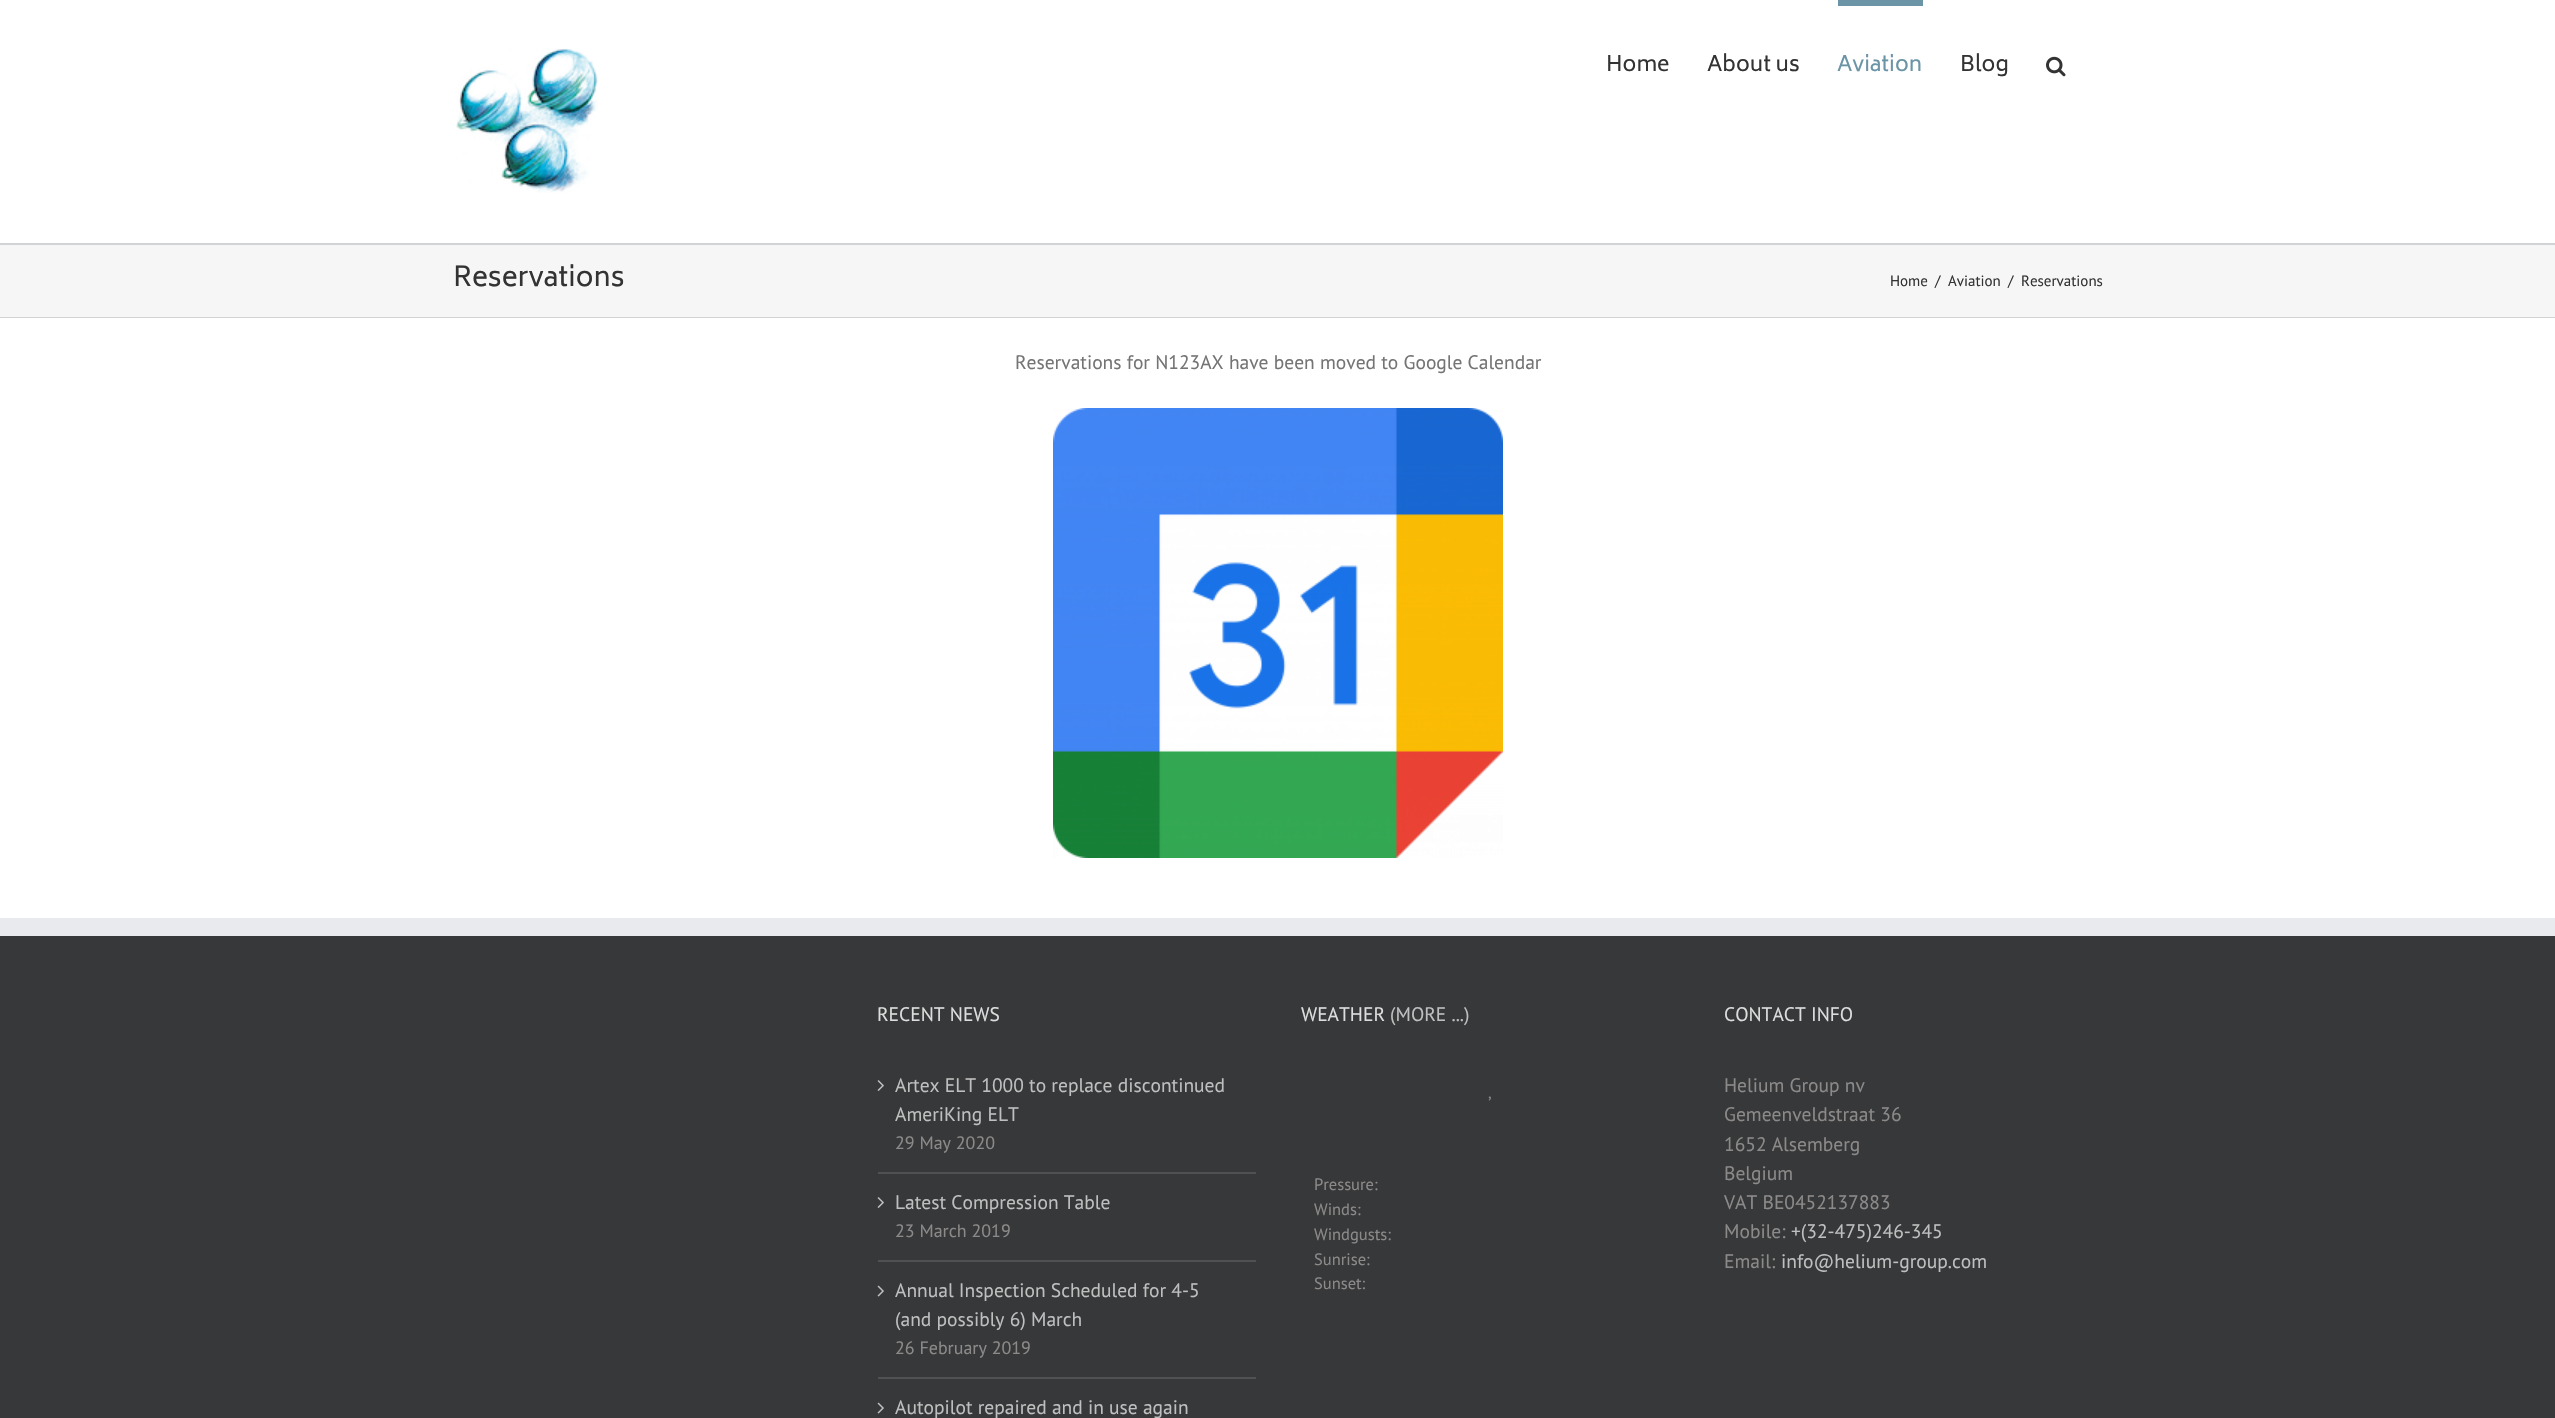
#include "include/core/SkBlurTypes.h"
#include "include/core/SkCanvas.h"
#include "include/core/SkData.h"
#include "include/core/SkFont.h"
#include "include/core/SkFontMgr.h"
#include "include/core/SkImage.h"
#include "include/core/SkMaskFilter.h"
#include "include/core/SkPaint.h"
#include "include/core/SkPathBuilder.h"
#include "include/core/SkTextBlob.h"
#include "include/effects/SkDashPathEffect.h"
#include "include/effects/SkGradientShader.h"
#include "include/utils/SkParsePath.h"

extern sk_sp<SkFontMgr> fontMgr;

static SkFont font(const char* family, int weight, float size, bool italic = false) {
    SkFontStyle style(weight, SkFontStyle::kNormal_Width,
        italic ? SkFontStyle::kItalic_Slant : SkFontStyle::kUpright_Slant);
    SkFont result(fontMgr->matchFamilyStyle(family, style), size);
    result.setSubpixel(true);
    return result;
}

static void drawLabel(SkCanvas* canvas, const char* s, float x, float y, const SkFont& font, SkColor color) {
    SkPaint ink(SkColor4f::FromColor(color));
    ink.setAntiAlias(true);
    canvas->drawString(s, x, y, font, ink);
}

static void fillRect(SkCanvas* canvas, float x, float y, float w, float h, SkColor color) {
    SkPaint ink(SkColor4f::FromColor(color));
    ink.setAntiAlias(true);
    canvas->drawRect(SkRect::MakeXYWH(x, y, w, h), ink);
}

static void drawPhoto(SkCanvas* canvas, const char* path, float x, float y, float w, float h) {
    auto image = SkImages::DeferredFromEncodedData(SkData::MakeFromFileName(path));
    canvas->drawImageRect(image, SkRect::MakeXYWH(x, y, w, h), SkSamplingOptions());
}

void draw(SkCanvas* canvas) {
    SkPaint paint;
    paint.setAntiAlias(true);
    canvas->clear(0xFFFFFFFF);
    drawPhoto(canvas, "assets/img1.png", 456, 48, 142, 145);
    SkFont font1 = font("Biryani", 400, 21);
    drawLabel(canvas, "Home", 1606, 71, font1, 0xFF333333);
    drawLabel(canvas, "About us", 1707, 71, font1, 0xFF333333);
    fillRect(canvas, 1838, 0, 85, 6, 0xFF6B94A6);
    drawLabel(canvas, "Aviation", 1837, 71, font1, 0xFF6B94A6);
    drawLabel(canvas, "Blog", 1960, 71, font1, 0xFF333333);
    drawPhoto(canvas, "assets/img2.png", 2046, 56, 20, 21);
    fillRect(canvas, 0, 245, 2555, 72, 0xFFF6F6F6);
    fillRect(canvas, 0, 243, 2555, 2, 0xFFD2D3D4);
    fillRect(canvas, 0, 317, 2555, 1, 0xFFD2D3D4);
    SkFont font2 = font("Biryani", 400, 27);
    drawLabel(canvas, "Reservations", 453, 286, font2, 0xFF333333);
    SkFont font3 = font("PT Sans", 400, 15);
    drawLabel(canvas, "Home", 1890, 286, font3, 0xFF333333);
    drawLabel(canvas, "/", 1935, 286, font3, 0xFF333333);
    drawLabel(canvas, "Aviation", 1948, 286, font3, 0xFF333333);
    drawLabel(canvas, "/", 2008, 286, font3, 0xFF333333);
    drawLabel(canvas, "Reservations", 2021, 286, font3, 0xFF333333);
    SkFont font4 = font("PT Sans", 400, 19.5f);
    drawLabel(canvas, "Reservations for N123AX have been moved to Google Calendar", 1015, 369, font4, 0xFF747474);
    drawPhoto(canvas, "assets/img3.png", 1053, 408, 450, 450);
    fillRect(canvas, 0, 936, 2555, 482, 0xFF363839);
    fillRect(canvas, 0, 918, 2555, 18, 0xFFE9EAEE);
    drawLabel(canvas, "RECENT NEWS", 877, 1021, font4, 0xFFDDDDDD);
    fillRect(canvas, 878, 1172, 378, 2, 0xFF505152);
    drawPhoto(canvas, "assets/img4.png", 877, 1080, 7, 11);
    drawLabel(canvas, "Artex ELT 1000 to replace discontinued", 895, 1092, font4, 0xFFBFBFBF);
    drawLabel(canvas, "AmeriKing ELT", 895, 1121, font4, 0xFFBFBFBF);
    SkFont font5 = font("PT Sans", 400, 18);
    drawLabel(canvas, "29 May 2020", 895, 1149, font5, 0xFF8C8989);
    fillRect(canvas, 878, 1260, 378, 2, 0xFF505152);
    drawPhoto(canvas, "assets/img4.png", 877, 1197, 7, 11);
    drawLabel(canvas, "Latest Compression Table", 895, 1209, font4, 0xFFBFBFBF);
    drawLabel(canvas, "23 March 2019", 895, 1237, font5, 0xFF8C8989);
    fillRect(canvas, 878, 1377, 378, 2, 0xFF505152);
    drawPhoto(canvas, "assets/img5.png", 877, 1285, 7, 12);
    drawLabel(canvas, "Annual Inspection Scheduled for 4-5", 895, 1297, font4, 0xFFBFBFBF);
    drawLabel(canvas, "(and possibly 6) March", 895, 1326, font4, 0xFFBFBFBF);
    drawLabel(canvas, "26 February 2019", 895, 1354, font5, 0xFF8C8989);
    drawPhoto(canvas, "assets/img5.png", 877, 1402, 7, 12);
    drawLabel(canvas, "Autopilot repaired and in use again", 895, 1414, font4, 0xFFBFBFBF);
    drawLabel(canvas, "WEATHER", 1301, 1021, font4, 0xFFDDDDDD);
    drawLabel(canvas, "(MORE ...)", 1390, 1021, font4, 0xFFBFBFBF);
    SkFont font6 = font("PT Sans", 400, 16.5f);
    drawLabel(canvas, ",", 1488, 1098, font6, 0xFF8C8989);
    drawLabel(canvas, "Pressure:", 1314, 1190, font6, 0xFF8C8989);
    drawLabel(canvas, "Winds:", 1314, 1215, font6, 0xFF8C8989);
    drawLabel(canvas, "Windgusts:", 1314, 1240, font6, 0xFF8C8989);
    drawLabel(canvas, "Sunrise:", 1314, 1265, font6, 0xFF8C8989);
    drawLabel(canvas, "Sunset:", 1314, 1289, font6, 0xFF8C8989);
    drawLabel(canvas, "CONTACT INFO", 1724, 1021, font4, 0xFFDDDDDD);
    drawLabel(canvas, "Helium Group nv", 1724, 1092, font4, 0xFF8C8989);
    drawLabel(canvas, "Gemeenveldstraat 36", 1724, 1121, font4, 0xFF8C8989);
    drawLabel(canvas, "1652 Alsemberg", 1724, 1151, font4, 0xFF8C8989);
    drawLabel(canvas, "Belgium", 1724, 1180, font4, 0xFF8C8989);
    drawLabel(canvas, "VAT BE0452137883", 1724, 1209, font4, 0xFF8C8989);
    drawLabel(canvas, "Mobile:", 1724, 1238, font4, 0xFF8C8989);
    drawLabel(canvas, "+(32-475)246-345", 1791, 1238, font4, 0xFFBFBFBF);
    drawLabel(canvas, "Email:", 1724, 1268, font4, 0xFF8C8989);
    drawLabel(canvas, "info@helium-group.com", 1781, 1268, font4, 0xFFBFBFBF);
}
